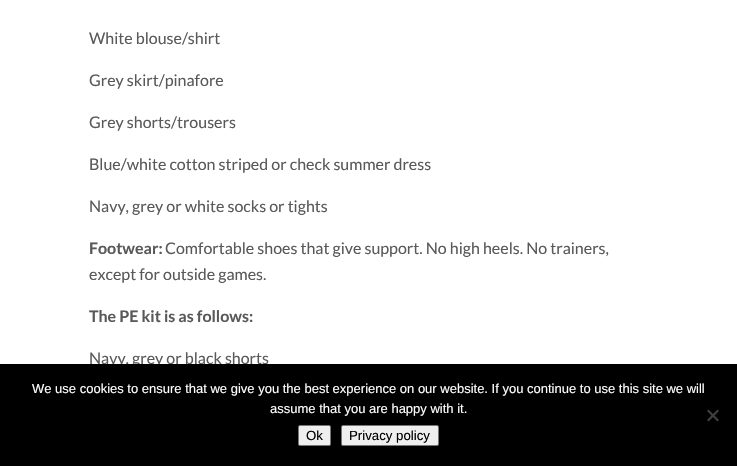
#include "include/core/SkBlurTypes.h"
#include "include/core/SkCanvas.h"
#include "include/core/SkData.h"
#include "include/core/SkFont.h"
#include "include/core/SkFontMgr.h"
#include "include/core/SkImage.h"
#include "include/core/SkMaskFilter.h"
#include "include/core/SkPaint.h"
#include "include/core/SkPathBuilder.h"
#include "include/core/SkTextBlob.h"
#include "include/effects/SkDashPathEffect.h"
#include "include/effects/SkGradientShader.h"
#include "include/utils/SkParsePath.h"

extern sk_sp<SkFontMgr> fontMgr;

static SkFont font(const char* family, int weight, float size, bool italic = false) {
    SkFontStyle style(weight, SkFontStyle::kNormal_Width,
        italic ? SkFontStyle::kItalic_Slant : SkFontStyle::kUpright_Slant);
    SkFont result(fontMgr->matchFamilyStyle(family, style), size);
    result.setSubpixel(true);
    return result;
}

static void drawLabel(SkCanvas* canvas, const char* s, float x, float y, const SkFont& font, SkColor color) {
    SkPaint ink(SkColor4f::FromColor(color));
    ink.setAntiAlias(true);
    canvas->drawString(s, x, y, font, ink);
}

static void fillRect(SkCanvas* canvas, float x, float y, float w, float h, SkColor color) {
    SkPaint ink(SkColor4f::FromColor(color));
    ink.setAntiAlias(true);
    canvas->drawRect(SkRect::MakeXYWH(x, y, w, h), ink);
}

static SkPath parsePath(const char* data, bool evenOdd = false) {
    SkPath result = *SkParsePath::FromSVGString(data);
    if (evenOdd) result.setFillType(SkPathFillType::kEvenOdd);
    return result;
}

void draw(SkCanvas* canvas) {
    SkPaint paint;
    paint.setAntiAlias(true);
    canvas->clear(0xFFFFFFFF);
    SkFont font1 = font("Lato", 400, 16);
    drawLabel(canvas, "White blouse/shirt", 89, 44, font1, 0xFF58595B);
    drawLabel(canvas, "Grey skirt/pinafore", 89, 86, font1, 0xFF58595B);
    drawLabel(canvas, "Grey shorts/trousers", 89, 128, font1, 0xFF58595B);
    drawLabel(canvas, "Blue/white cotton striped or check summer dress", 89, 170, font1, 0xFF58595B);
    drawLabel(canvas, "Navy, grey or white socks or tights", 89, 212, font1, 0xFF58595B);
    SkFont font2 = font("Lato", 700, 16);
    drawLabel(canvas, "Footwear:", 89, 254, font2, 0xFF58595B);
    drawLabel(canvas, "Comfortable shoes that give support. No high heels. No trainers,", 165, 254, font1, 0xFF58595B);
    drawLabel(canvas, "except for outside games.", 89, 280, font1, 0xFF58595B);
    drawLabel(canvas, "The PE kit is as follows:", 89, 322, font2, 0xFF58595B);
    drawLabel(canvas, "Navy, grey or black shorts", 89, 364, font1, 0xFF58595B);
    fillRect(canvas, 0, 364, 737, 102, 0xFF000000);
    SkFont font3 = font("Liberation Sans", 400, 13);
    drawLabel(canvas, "We use cookies to ensure that we give you the best experience on our website. If you continue to use this site we will", 32, 393, font3, 0xFFFFFFFF);
    drawLabel(canvas, "assume that you are happy with it.", 270, 413, font3, 0xFFFFFFFF);
    paint.setColor(0xFF404040);
    canvas->drawPath(parsePath("M717.5 409.5L719 411L708.5 421.5L707 420Z"), paint);
    canvas->drawPath(parsePath("M707 411L708.5 409.5L719 420L717.5 421.5Z"), paint);
    paint.setColor(0xFFEFEFEF);
    canvas->drawRoundRect(SkRect::MakeXYWH(298.5f, 425.5f, 32, 20), 1.5f, 1.5f, paint);
    paint.setStroke(true);
    paint.setStrokeWidth(1);
    paint.setColor(0xFF767676);
    canvas->drawRoundRect(SkRect::MakeXYWH(298.5f, 425.5f, 32, 20), 1.5f, 1.5f, paint);
    SkFont font4 = font("Liberation Sans", 400, 13.25f);
    drawLabel(canvas, "Ok", 306, 440, font4, 0xFF000000);
    paint.setStroke(false);
    paint.setColor(0xFFEFEFEF);
    canvas->drawRoundRect(SkRect::MakeXYWH(341.5f, 425.5f, 97, 20), 1.5f, 1.5f, paint);
    paint.setStroke(true);
    paint.setColor(0xFF767676);
    canvas->drawRoundRect(SkRect::MakeXYWH(341.5f, 425.5f, 97, 20), 1.5f, 1.5f, paint);
    drawLabel(canvas, "Privacy policy", 349, 440, font4, 0xFF000000);
}
